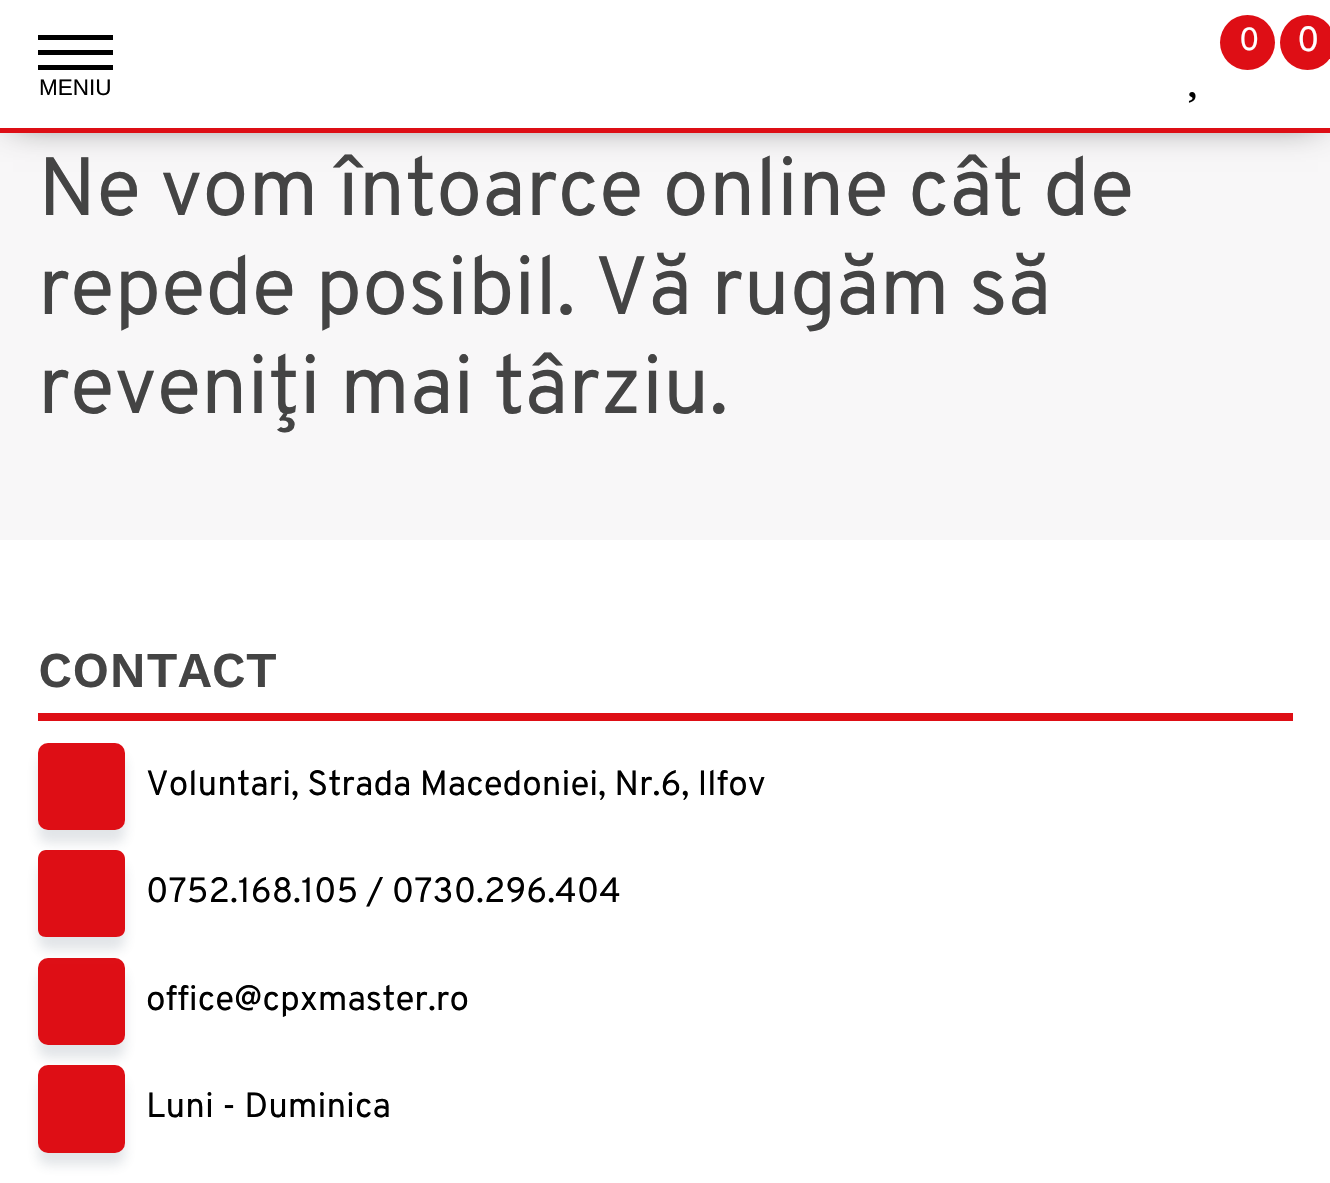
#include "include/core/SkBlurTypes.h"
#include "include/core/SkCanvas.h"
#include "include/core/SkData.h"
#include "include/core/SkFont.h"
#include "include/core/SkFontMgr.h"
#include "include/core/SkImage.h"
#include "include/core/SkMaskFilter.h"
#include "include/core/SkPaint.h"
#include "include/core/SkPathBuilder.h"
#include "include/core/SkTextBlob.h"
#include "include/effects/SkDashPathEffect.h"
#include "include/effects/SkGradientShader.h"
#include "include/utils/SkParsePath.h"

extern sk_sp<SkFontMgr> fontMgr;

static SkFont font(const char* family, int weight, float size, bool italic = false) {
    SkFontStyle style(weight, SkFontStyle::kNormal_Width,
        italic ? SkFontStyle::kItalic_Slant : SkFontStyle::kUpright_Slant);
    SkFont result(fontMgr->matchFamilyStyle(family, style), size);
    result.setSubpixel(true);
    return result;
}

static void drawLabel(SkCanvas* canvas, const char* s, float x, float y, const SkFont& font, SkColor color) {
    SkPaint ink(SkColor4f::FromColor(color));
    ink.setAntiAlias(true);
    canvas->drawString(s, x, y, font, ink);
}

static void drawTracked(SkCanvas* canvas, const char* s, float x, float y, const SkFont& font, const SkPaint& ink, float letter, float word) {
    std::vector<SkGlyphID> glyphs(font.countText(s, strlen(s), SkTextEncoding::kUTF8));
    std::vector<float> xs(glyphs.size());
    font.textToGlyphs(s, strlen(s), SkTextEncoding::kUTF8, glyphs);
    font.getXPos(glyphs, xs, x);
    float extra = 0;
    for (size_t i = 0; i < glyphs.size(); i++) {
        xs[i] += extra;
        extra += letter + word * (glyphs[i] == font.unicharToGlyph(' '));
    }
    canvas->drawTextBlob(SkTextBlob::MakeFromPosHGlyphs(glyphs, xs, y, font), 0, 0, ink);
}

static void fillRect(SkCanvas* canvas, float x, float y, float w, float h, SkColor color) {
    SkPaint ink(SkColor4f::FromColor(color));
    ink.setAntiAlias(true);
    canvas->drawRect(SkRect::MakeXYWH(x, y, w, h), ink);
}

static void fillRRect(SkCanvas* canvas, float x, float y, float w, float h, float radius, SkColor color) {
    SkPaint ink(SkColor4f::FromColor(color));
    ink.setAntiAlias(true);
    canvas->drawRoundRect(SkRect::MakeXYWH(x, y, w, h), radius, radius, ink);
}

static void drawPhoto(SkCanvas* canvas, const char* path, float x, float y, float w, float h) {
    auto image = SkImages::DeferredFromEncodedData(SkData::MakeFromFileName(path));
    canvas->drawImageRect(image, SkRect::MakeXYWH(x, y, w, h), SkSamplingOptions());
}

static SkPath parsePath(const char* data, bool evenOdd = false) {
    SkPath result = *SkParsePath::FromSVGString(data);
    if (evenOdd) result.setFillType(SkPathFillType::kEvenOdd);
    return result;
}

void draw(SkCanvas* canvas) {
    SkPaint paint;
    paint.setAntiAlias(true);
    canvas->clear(0xFFF8F7F8);
    paint.setColor(0xAD000000);
    paint.setMaskFilter(SkMaskFilter::MakeBlur(kNormal_SkBlurStyle, 17.5f));
    canvas->drawRect(SkRect::MakeXYWH(13, 13, 1305, 107), paint);
    paint.setMaskFilter(nullptr);
    fillRect(canvas, 0, 0, 1330, 128, 0xFFFFFFFF);
    fillRect(canvas, 0, 128, 1330, 5, 0xFFDD0E15);
    paint.setColor(0xFFDE0E15);
    canvas->drawCircle(1247.5f, 42.5f, 27.5f, paint);
    SkFont font1 = font("Overpass", 400, 32);
    paint.setColor(0xFFFFFFFF);
    drawTracked(canvas, "0", 1239, 50, font1, paint, -2, 0);
    drawPhoto(canvas, "assets/img1.png", 1188, 92, 8, 11);
    paint.setColor(0xFFDE0E15);
    canvas->drawCircle(1307.5f, 42.5f, 27.5f, paint);
    SkFont font2 = font("Overpass", 400, 35);
    drawLabel(canvas, "0", 1297, 51, font2, 0xFFFFFFFF);
    fillRect(canvas, 38, 35, 75, 5, 0xFF000000);
    fillRect(canvas, 38, 50, 75, 5, 0xFF000000);
    fillRect(canvas, 38, 65, 75, 5, 0xFF000000);
    SkFont font3 = font("Liberation Sans", 400, 22.5f);
    drawLabel(canvas, "MENIU", 39, 95, font3, 0xFF000000);
    SkFont font4 = font("Overpass", 400, 82.5f);
    drawLabel(canvas, "Ne vom întoarce online cât de", 38, 215, font4, 0xFF444444);
    drawLabel(canvas, "repede posibil. Vă rugăm să", 38, 314, font4, 0xFF444444);
    drawLabel(canvas, "reveniţi mai târziu.", 38, 413, font4, 0xFF444444);
    fillRect(canvas, 0, 540, 1330, 643, 0xFFFFFFFF);
    fillRect(canvas, 38, 713, 1255, 8, 0xFFDE0E15);
    SkFont font5 = font("Work Sans", 600, 50);
    drawLabel(canvas, "CONTACT", 38, 687, font5, 0xFF444444);
    paint.setColor(0x263F4E64);
    paint.setMaskFilter(SkMaskFilter::MakeBlur(kNormal_SkBlurStyle, 6));
    canvas->drawRoundRect(SkRect::MakeXYWH(38, 755, 87, 88), 10, 10, paint);
    paint.setMaskFilter(nullptr);
    fillRRect(canvas, 38, 743, 87, 87, 10, 0xFFDE0E15);
    drawLabel(canvas, "Voluntari, Strada Macedoniei, Nr.6, Ilfov", 146, 795, font2, 0xFF000000);
    paint.setMaskFilter(SkMaskFilter::MakeBlur(kNormal_SkBlurStyle, 6));
    canvas->drawRoundRect(SkRect::MakeXYWH(38, 970, 87, 88), 10, 10, paint);
    paint.setMaskFilter(nullptr);
    fillRRect(canvas, 38, 958, 87, 87, 10, 0xFFDE0E15);
    paint.setMaskFilter(SkMaskFilter::MakeBlur(kNormal_SkBlurStyle, 6));
    canvas->drawRoundRect(SkRect::MakeXYWH(38, 863, 87, 87), 10, 10, paint);
    paint.setMaskFilter(nullptr);
    paint.setColor(0xFFDE0E15);
    canvas->drawPath(parsePath("M116 850H46C41 850 38 854 38 859V929C38 934 41 937 46 937H116C121 937 125 934 125 929V859C125 854 121 850 116 850Z"), paint);
    drawLabel(canvas, "0752.168.105 / 0730.296.404", 146, 902, font2, 0xFF000000);
    drawLabel(canvas, "office@cpxmaster.ro", 146, 1010, font2, 0xFF000000);
    paint.setColor(0x263F4E64);
    paint.setMaskFilter(SkMaskFilter::MakeBlur(kNormal_SkBlurStyle, 6));
    canvas->drawRoundRect(SkRect::MakeXYWH(38, 1078, 87, 87), 10, 10, paint);
    paint.setMaskFilter(nullptr);
    fillRRect(canvas, 38, 1065, 87, 88, 10, 0xFFDE0E15);
    drawLabel(canvas, "Luni - Duminica", 146, 1117, font2, 0xFF000000);
}
